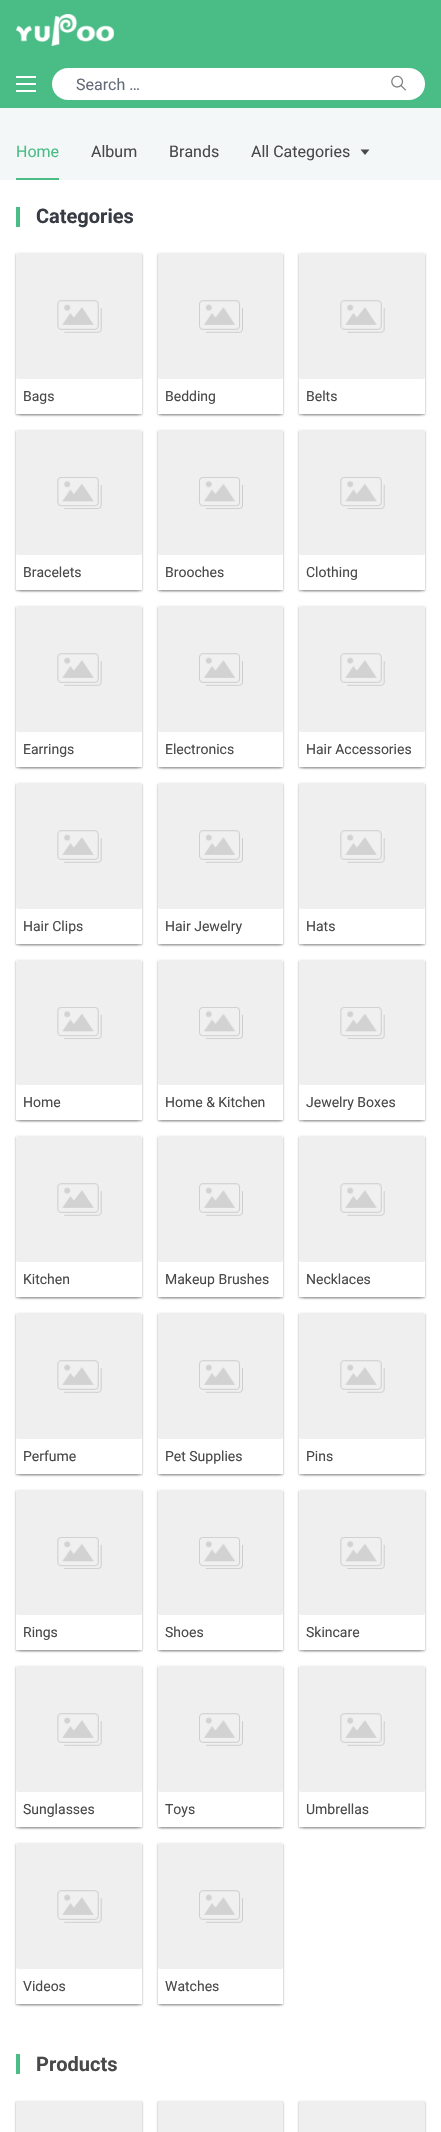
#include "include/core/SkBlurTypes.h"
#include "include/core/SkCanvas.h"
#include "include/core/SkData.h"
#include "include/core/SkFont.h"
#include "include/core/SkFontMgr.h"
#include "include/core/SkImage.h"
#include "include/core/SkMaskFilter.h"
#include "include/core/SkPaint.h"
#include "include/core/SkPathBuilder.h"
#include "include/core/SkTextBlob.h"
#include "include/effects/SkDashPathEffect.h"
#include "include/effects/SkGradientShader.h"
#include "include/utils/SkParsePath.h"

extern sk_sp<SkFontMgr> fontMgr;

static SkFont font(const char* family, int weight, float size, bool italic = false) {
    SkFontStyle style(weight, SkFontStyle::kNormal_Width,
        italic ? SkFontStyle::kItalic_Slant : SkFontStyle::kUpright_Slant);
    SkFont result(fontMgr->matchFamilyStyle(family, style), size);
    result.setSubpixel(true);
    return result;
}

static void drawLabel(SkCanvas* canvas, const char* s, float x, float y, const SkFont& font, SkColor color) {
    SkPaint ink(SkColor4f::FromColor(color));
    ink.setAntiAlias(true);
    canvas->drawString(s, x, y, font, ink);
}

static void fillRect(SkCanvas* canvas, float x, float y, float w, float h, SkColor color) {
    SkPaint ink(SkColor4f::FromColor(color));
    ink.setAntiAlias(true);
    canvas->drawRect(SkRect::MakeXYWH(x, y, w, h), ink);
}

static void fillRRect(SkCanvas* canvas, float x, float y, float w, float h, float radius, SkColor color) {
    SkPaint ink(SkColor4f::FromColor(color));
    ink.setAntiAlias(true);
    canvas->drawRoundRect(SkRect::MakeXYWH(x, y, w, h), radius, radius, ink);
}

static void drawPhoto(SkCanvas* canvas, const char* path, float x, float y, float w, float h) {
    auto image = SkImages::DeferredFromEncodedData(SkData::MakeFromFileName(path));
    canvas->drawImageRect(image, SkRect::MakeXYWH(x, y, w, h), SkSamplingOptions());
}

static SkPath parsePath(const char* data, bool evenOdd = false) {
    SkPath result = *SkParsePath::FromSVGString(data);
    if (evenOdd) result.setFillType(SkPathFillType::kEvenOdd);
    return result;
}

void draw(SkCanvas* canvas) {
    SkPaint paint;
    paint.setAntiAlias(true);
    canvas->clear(0xFFFFFFFF);
    fillRect(canvas, 0, 0, 441, 108, 0xFF4ABC86);
    drawPhoto(canvas, "assets/img1.png", 16, 14, 98, 32);
    fillRect(canvas, 16, 76, 20, 2, 0xFFFFFFFF);
    fillRect(canvas, 16, 90, 20, 2, 0xFFFFFFFF);
    fillRect(canvas, 16, 83, 20, 2, 0xFFFFFFFF);
    fillRRect(canvas, 52, 68, 373, 32, 16, 0xFFFFFFFF);
    SkFont font1 = font("Roboto", 400, 16);
    drawLabel(canvas, "Search …", 76, 90, font1, 0xFF646B79);
    drawPhoto(canvas, "assets/img2.png", 391, 75, 16, 16);
    fillRect(canvas, 0, 108, 441, 72, 0xFFF3F7F7);
    drawLabel(canvas, "Home", 16, 157, font1, 0xFF4ABC86);
    fillRect(canvas, 16, 178, 43, 2, 0xFF4ABC86);
    drawLabel(canvas, "Album", 91, 157, font1, 0xFF494949);
    drawLabel(canvas, "Brands", 169, 157, font1, 0xFF494949);
    drawLabel(canvas, "All Categories", 251, 157, font1, 0xFF494949);
    paint.setColor(0xFF494949);
    canvas->drawPath(parsePath("M360.5 149.5H369.5L365 155Z"), paint);
    fillRect(canvas, 16, 207, 4, 20, 0xFF4ABC86);
    SkFont font2 = font("Roboto", 700, 20);
    drawLabel(canvas, "Categories", 36, 223, font2, 0xFF373C44);
    paint.setColor(0xFF9F9F9F);
    paint.setMaskFilter(SkMaskFilter::MakeBlur(kNormal_SkBlurStyle, 1));
    canvas->drawRect(SkRect::MakeXYWH(16, 254, 126, 161), paint);
    paint.setMaskFilter(nullptr);
    paint.setMaskFilter(SkMaskFilter::MakeBlur(kNormal_SkBlurStyle, 1));
    canvas->drawRect(SkRect::MakeXYWH(20, 399, 118, 16), paint);
    paint.setMaskFilter(nullptr);
    fillRect(canvas, 16, 253, 126, 161, 0xFFFFFFFF);
    fillRRect(canvas, 16, 253, 126, 126, 2, 0xFFEFEFEF);
    drawPhoto(canvas, "assets/img3.png", 57, 300, 45, 33);
    SkFont font3 = font("Roboto", 400, 14);
    drawLabel(canvas, "Bags", 23, 401, font3, 0xFF494949);
    paint.setMaskFilter(SkMaskFilter::MakeBlur(kNormal_SkBlurStyle, 1));
    canvas->drawRect(SkRect::MakeXYWH(158, 254, 125, 161), paint);
    paint.setMaskFilter(nullptr);
    paint.setMaskFilter(SkMaskFilter::MakeBlur(kNormal_SkBlurStyle, 1));
    canvas->drawRect(SkRect::MakeXYWH(161, 399, 119, 16), paint);
    paint.setMaskFilter(nullptr);
    fillRect(canvas, 158, 253, 125, 161, 0xFFFFFFFF);
    fillRRect(canvas, 158, 253, 125, 126, 2, 0xFFEFEFEF);
    drawPhoto(canvas, "assets/img4.png", 199, 300, 44, 33);
    drawLabel(canvas, "Bedding", 165, 401, font3, 0xFF494949);
    paint.setMaskFilter(SkMaskFilter::MakeBlur(kNormal_SkBlurStyle, 1));
    canvas->drawRect(SkRect::MakeXYWH(299, 254, 126, 161), paint);
    paint.setMaskFilter(nullptr);
    paint.setMaskFilter(SkMaskFilter::MakeBlur(kNormal_SkBlurStyle, 1));
    canvas->drawRect(SkRect::MakeXYWH(303, 399, 118, 16), paint);
    paint.setMaskFilter(nullptr);
    fillRect(canvas, 299, 253, 126, 161, 0xFFFFFFFF);
    fillRRect(canvas, 299, 253, 126, 126, 2, 0xFFEFEFEF);
    drawPhoto(canvas, "assets/img3.png", 340, 300, 45, 33);
    drawLabel(canvas, "Belts", 306, 401, font3, 0xFF494949);
    paint.setMaskFilter(SkMaskFilter::MakeBlur(kNormal_SkBlurStyle, 1));
    canvas->drawRect(SkRect::MakeXYWH(16, 431, 126, 160), paint);
    paint.setMaskFilter(nullptr);
    paint.setMaskFilter(SkMaskFilter::MakeBlur(kNormal_SkBlurStyle, 1));
    canvas->drawRect(SkRect::MakeXYWH(20, 575, 118, 16), paint);
    paint.setMaskFilter(nullptr);
    fillRect(canvas, 16, 430, 126, 160, 0xFFFFFFFF);
    fillRRect(canvas, 16, 430, 126, 125, 2, 0xFFEFEFEF);
    drawPhoto(canvas, "assets/img5.png", 57, 477, 45, 32);
    drawLabel(canvas, "Bracelets", 23, 577, font3, 0xFF494949);
    paint.setMaskFilter(SkMaskFilter::MakeBlur(kNormal_SkBlurStyle, 1));
    canvas->drawRect(SkRect::MakeXYWH(158, 431, 125, 160), paint);
    paint.setMaskFilter(nullptr);
    paint.setMaskFilter(SkMaskFilter::MakeBlur(kNormal_SkBlurStyle, 1));
    canvas->drawRect(SkRect::MakeXYWH(161, 575, 119, 16), paint);
    paint.setMaskFilter(nullptr);
    fillRect(canvas, 158, 430, 125, 160, 0xFFFFFFFF);
    fillRRect(canvas, 158, 430, 125, 125, 2, 0xFFEFEFEF);
    drawPhoto(canvas, "assets/img6.png", 199, 477, 44, 32);
    drawLabel(canvas, "Brooches", 165, 577, font3, 0xFF494949);
    paint.setMaskFilter(SkMaskFilter::MakeBlur(kNormal_SkBlurStyle, 1));
    canvas->drawRect(SkRect::MakeXYWH(299, 431, 126, 160), paint);
    paint.setMaskFilter(nullptr);
    paint.setMaskFilter(SkMaskFilter::MakeBlur(kNormal_SkBlurStyle, 1));
    canvas->drawRect(SkRect::MakeXYWH(303, 575, 118, 16), paint);
    paint.setMaskFilter(nullptr);
    fillRect(canvas, 299, 430, 126, 160, 0xFFFFFFFF);
    fillRRect(canvas, 299, 430, 126, 125, 2, 0xFFEFEFEF);
    drawPhoto(canvas, "assets/img5.png", 340, 477, 45, 32);
    drawLabel(canvas, "Clothing", 306, 577, font3, 0xFF494949);
    paint.setMaskFilter(SkMaskFilter::MakeBlur(kNormal_SkBlurStyle, 1));
    canvas->drawRect(SkRect::MakeXYWH(16, 607, 126, 161), paint);
    paint.setMaskFilter(nullptr);
    paint.setMaskFilter(SkMaskFilter::MakeBlur(kNormal_SkBlurStyle, 1));
    canvas->drawRect(SkRect::MakeXYWH(20, 752, 118, 16), paint);
    paint.setMaskFilter(nullptr);
    fillRect(canvas, 16, 606, 126, 161, 0xFFFFFFFF);
    fillRRect(canvas, 16, 606, 126, 126, 2, 0xFFEFEFEF);
    drawPhoto(canvas, "assets/img3.png", 57, 653, 45, 33);
    drawLabel(canvas, "Earrings", 23, 754, font3, 0xFF494949);
    paint.setMaskFilter(SkMaskFilter::MakeBlur(kNormal_SkBlurStyle, 1));
    canvas->drawRect(SkRect::MakeXYWH(158, 607, 125, 161), paint);
    paint.setMaskFilter(nullptr);
    paint.setMaskFilter(SkMaskFilter::MakeBlur(kNormal_SkBlurStyle, 1));
    canvas->drawRect(SkRect::MakeXYWH(161, 752, 119, 16), paint);
    paint.setMaskFilter(nullptr);
    fillRect(canvas, 158, 606, 125, 161, 0xFFFFFFFF);
    fillRRect(canvas, 158, 606, 125, 126, 2, 0xFFEFEFEF);
    drawPhoto(canvas, "assets/img4.png", 199, 653, 44, 33);
    drawLabel(canvas, "Electronics", 165, 754, font3, 0xFF494949);
    paint.setMaskFilter(SkMaskFilter::MakeBlur(kNormal_SkBlurStyle, 1));
    canvas->drawRect(SkRect::MakeXYWH(299, 607, 126, 161), paint);
    paint.setMaskFilter(nullptr);
    paint.setMaskFilter(SkMaskFilter::MakeBlur(kNormal_SkBlurStyle, 1));
    canvas->drawRect(SkRect::MakeXYWH(303, 752, 118, 16), paint);
    paint.setMaskFilter(nullptr);
    fillRect(canvas, 299, 606, 126, 161, 0xFFFFFFFF);
    fillRRect(canvas, 299, 606, 126, 126, 2, 0xFFEFEFEF);
    drawPhoto(canvas, "assets/img3.png", 340, 653, 45, 33);
    drawLabel(canvas, "Hair Accessories", 306, 754, font3, 0xFF494949);
    paint.setMaskFilter(SkMaskFilter::MakeBlur(kNormal_SkBlurStyle, 1));
    canvas->drawRect(SkRect::MakeXYWH(16, 784, 126, 161), paint);
    paint.setMaskFilter(nullptr);
    paint.setMaskFilter(SkMaskFilter::MakeBlur(kNormal_SkBlurStyle, 1));
    canvas->drawRect(SkRect::MakeXYWH(20, 929, 118, 16), paint);
    paint.setMaskFilter(nullptr);
    fillRect(canvas, 16, 783, 126, 161, 0xFFFFFFFF);
    fillRRect(canvas, 16, 783, 126, 126, 2, 0xFFEFEFEF);
    drawPhoto(canvas, "assets/img3.png", 57, 830, 45, 33);
    drawLabel(canvas, "Hair Clips", 23, 931, font3, 0xFF494949);
    paint.setMaskFilter(SkMaskFilter::MakeBlur(kNormal_SkBlurStyle, 1));
    canvas->drawRect(SkRect::MakeXYWH(158, 784, 125, 161), paint);
    paint.setMaskFilter(nullptr);
    paint.setMaskFilter(SkMaskFilter::MakeBlur(kNormal_SkBlurStyle, 1));
    canvas->drawRect(SkRect::MakeXYWH(161, 929, 119, 16), paint);
    paint.setMaskFilter(nullptr);
    fillRect(canvas, 158, 783, 125, 161, 0xFFFFFFFF);
    fillRRect(canvas, 158, 783, 125, 126, 2, 0xFFEFEFEF);
    drawPhoto(canvas, "assets/img4.png", 199, 830, 44, 33);
    drawLabel(canvas, "Hair Jewelry", 165, 931, font3, 0xFF494949);
    paint.setMaskFilter(SkMaskFilter::MakeBlur(kNormal_SkBlurStyle, 1));
    canvas->drawRect(SkRect::MakeXYWH(299, 784, 126, 161), paint);
    paint.setMaskFilter(nullptr);
    paint.setMaskFilter(SkMaskFilter::MakeBlur(kNormal_SkBlurStyle, 1));
    canvas->drawRect(SkRect::MakeXYWH(303, 929, 118, 16), paint);
    paint.setMaskFilter(nullptr);
    fillRect(canvas, 299, 783, 126, 161, 0xFFFFFFFF);
    fillRRect(canvas, 299, 783, 126, 126, 2, 0xFFEFEFEF);
    drawPhoto(canvas, "assets/img3.png", 340, 830, 45, 33);
    drawLabel(canvas, "Hats", 306, 931, font3, 0xFF494949);
    paint.setMaskFilter(SkMaskFilter::MakeBlur(kNormal_SkBlurStyle, 1));
    canvas->drawRect(SkRect::MakeXYWH(16, 961, 126, 160), paint);
    paint.setMaskFilter(nullptr);
    paint.setMaskFilter(SkMaskFilter::MakeBlur(kNormal_SkBlurStyle, 1));
    canvas->drawRect(SkRect::MakeXYWH(20, 1105, 118, 16), paint);
    paint.setMaskFilter(nullptr);
    fillRect(canvas, 16, 960, 126, 160, 0xFFFFFFFF);
    fillRRect(canvas, 16, 960, 126, 125, 2, 0xFFEFEFEF);
    drawPhoto(canvas, "assets/img5.png", 57, 1007, 45, 32);
    drawLabel(canvas, "Home", 23, 1107, font3, 0xFF494949);
    paint.setMaskFilter(SkMaskFilter::MakeBlur(kNormal_SkBlurStyle, 1));
    canvas->drawRect(SkRect::MakeXYWH(158, 961, 125, 160), paint);
    paint.setMaskFilter(nullptr);
    paint.setMaskFilter(SkMaskFilter::MakeBlur(kNormal_SkBlurStyle, 1));
    canvas->drawRect(SkRect::MakeXYWH(161, 1105, 119, 16), paint);
    paint.setMaskFilter(nullptr);
    fillRect(canvas, 158, 960, 125, 160, 0xFFFFFFFF);
    fillRRect(canvas, 158, 960, 125, 125, 2, 0xFFEFEFEF);
    drawPhoto(canvas, "assets/img6.png", 199, 1007, 44, 32);
    drawLabel(canvas, "Home & Kitchen", 165, 1107, font3, 0xFF494949);
    paint.setMaskFilter(SkMaskFilter::MakeBlur(kNormal_SkBlurStyle, 1));
    canvas->drawRect(SkRect::MakeXYWH(299, 961, 126, 160), paint);
    paint.setMaskFilter(nullptr);
    paint.setMaskFilter(SkMaskFilter::MakeBlur(kNormal_SkBlurStyle, 1));
    canvas->drawRect(SkRect::MakeXYWH(303, 1105, 118, 16), paint);
    paint.setMaskFilter(nullptr);
    fillRect(canvas, 299, 960, 126, 160, 0xFFFFFFFF);
    fillRRect(canvas, 299, 960, 126, 125, 2, 0xFFEFEFEF);
    drawPhoto(canvas, "assets/img5.png", 340, 1007, 45, 32);
    drawLabel(canvas, "Jewelry Boxes", 306, 1107, font3, 0xFF494949);
    paint.setMaskFilter(SkMaskFilter::MakeBlur(kNormal_SkBlurStyle, 1));
    canvas->drawRect(SkRect::MakeXYWH(16, 1137, 126, 161), paint);
    paint.setMaskFilter(nullptr);
    paint.setMaskFilter(SkMaskFilter::MakeBlur(kNormal_SkBlurStyle, 1));
    canvas->drawRect(SkRect::MakeXYWH(20, 1282, 118, 16), paint);
    paint.setMaskFilter(nullptr);
    fillRect(canvas, 16, 1136, 126, 161, 0xFFFFFFFF);
    fillRRect(canvas, 16, 1136, 126, 126, 2, 0xFFEFEFEF);
    drawPhoto(canvas, "assets/img3.png", 57, 1183, 45, 33);
    drawLabel(canvas, "Kitchen", 23, 1284, font3, 0xFF494949);
    paint.setMaskFilter(SkMaskFilter::MakeBlur(kNormal_SkBlurStyle, 1));
    canvas->drawRect(SkRect::MakeXYWH(158, 1137, 125, 161), paint);
    paint.setMaskFilter(nullptr);
    paint.setMaskFilter(SkMaskFilter::MakeBlur(kNormal_SkBlurStyle, 1));
    canvas->drawRect(SkRect::MakeXYWH(161, 1282, 119, 16), paint);
    paint.setMaskFilter(nullptr);
    fillRect(canvas, 158, 1136, 125, 161, 0xFFFFFFFF);
    fillRRect(canvas, 158, 1136, 125, 126, 2, 0xFFEFEFEF);
    drawPhoto(canvas, "assets/img4.png", 199, 1183, 44, 33);
    drawLabel(canvas, "Makeup Brushes", 165, 1284, font3, 0xFF494949);
    paint.setMaskFilter(SkMaskFilter::MakeBlur(kNormal_SkBlurStyle, 1));
    canvas->drawRect(SkRect::MakeXYWH(299, 1137, 126, 161), paint);
    paint.setMaskFilter(nullptr);
    paint.setMaskFilter(SkMaskFilter::MakeBlur(kNormal_SkBlurStyle, 1));
    canvas->drawRect(SkRect::MakeXYWH(303, 1282, 118, 16), paint);
    paint.setMaskFilter(nullptr);
    fillRect(canvas, 299, 1136, 126, 161, 0xFFFFFFFF);
    fillRRect(canvas, 299, 1136, 126, 126, 2, 0xFFEFEFEF);
    drawPhoto(canvas, "assets/img3.png", 340, 1183, 45, 33);
    drawLabel(canvas, "Necklaces", 306, 1284, font3, 0xFF494949);
    paint.setMaskFilter(SkMaskFilter::MakeBlur(kNormal_SkBlurStyle, 1));
    canvas->drawRect(SkRect::MakeXYWH(16, 1314, 126, 161), paint);
    paint.setMaskFilter(nullptr);
    paint.setMaskFilter(SkMaskFilter::MakeBlur(kNormal_SkBlurStyle, 1));
    canvas->drawRect(SkRect::MakeXYWH(20, 1459, 118, 16), paint);
    paint.setMaskFilter(nullptr);
    fillRect(canvas, 16, 1313, 126, 161, 0xFFFFFFFF);
    fillRRect(canvas, 16, 1313, 126, 126, 2, 0xFFEFEFEF);
    drawPhoto(canvas, "assets/img3.png", 57, 1360, 45, 33);
    drawLabel(canvas, "Perfume", 23, 1461, font3, 0xFF494949);
    paint.setMaskFilter(SkMaskFilter::MakeBlur(kNormal_SkBlurStyle, 1));
    canvas->drawRect(SkRect::MakeXYWH(158, 1314, 125, 161), paint);
    paint.setMaskFilter(nullptr);
    paint.setMaskFilter(SkMaskFilter::MakeBlur(kNormal_SkBlurStyle, 1));
    canvas->drawRect(SkRect::MakeXYWH(161, 1459, 119, 16), paint);
    paint.setMaskFilter(nullptr);
    fillRect(canvas, 158, 1313, 125, 161, 0xFFFFFFFF);
    fillRRect(canvas, 158, 1313, 125, 126, 2, 0xFFEFEFEF);
    drawPhoto(canvas, "assets/img4.png", 199, 1360, 44, 33);
    drawLabel(canvas, "Pet Supplies", 165, 1461, font3, 0xFF494949);
    paint.setMaskFilter(SkMaskFilter::MakeBlur(kNormal_SkBlurStyle, 1));
    canvas->drawRect(SkRect::MakeXYWH(299, 1314, 126, 161), paint);
    paint.setMaskFilter(nullptr);
    paint.setMaskFilter(SkMaskFilter::MakeBlur(kNormal_SkBlurStyle, 1));
    canvas->drawRect(SkRect::MakeXYWH(303, 1459, 118, 16), paint);
    paint.setMaskFilter(nullptr);
    fillRect(canvas, 299, 1313, 126, 161, 0xFFFFFFFF);
    fillRRect(canvas, 299, 1313, 126, 126, 2, 0xFFEFEFEF);
    drawPhoto(canvas, "assets/img3.png", 340, 1360, 45, 33);
    drawLabel(canvas, "Pins", 306, 1461, font3, 0xFF494949);
    paint.setMaskFilter(SkMaskFilter::MakeBlur(kNormal_SkBlurStyle, 1));
    canvas->drawRect(SkRect::MakeXYWH(16, 1491, 126, 160), paint);
    paint.setMaskFilter(nullptr);
    paint.setMaskFilter(SkMaskFilter::MakeBlur(kNormal_SkBlurStyle, 1));
    canvas->drawRect(SkRect::MakeXYWH(20, 1635, 118, 16), paint);
    paint.setMaskFilter(nullptr);
    fillRect(canvas, 16, 1490, 126, 160, 0xFFFFFFFF);
    fillRRect(canvas, 16, 1490, 126, 125, 2, 0xFFEFEFEF);
    drawPhoto(canvas, "assets/img5.png", 57, 1537, 45, 32);
    drawLabel(canvas, "Rings", 23, 1637, font3, 0xFF494949);
    paint.setMaskFilter(SkMaskFilter::MakeBlur(kNormal_SkBlurStyle, 1));
    canvas->drawRect(SkRect::MakeXYWH(158, 1491, 125, 160), paint);
    paint.setMaskFilter(nullptr);
    paint.setMaskFilter(SkMaskFilter::MakeBlur(kNormal_SkBlurStyle, 1));
    canvas->drawRect(SkRect::MakeXYWH(161, 1635, 119, 16), paint);
    paint.setMaskFilter(nullptr);
    fillRect(canvas, 158, 1490, 125, 160, 0xFFFFFFFF);
    fillRRect(canvas, 158, 1490, 125, 125, 2, 0xFFEFEFEF);
    drawPhoto(canvas, "assets/img6.png", 199, 1537, 44, 32);
    drawLabel(canvas, "Shoes", 165, 1637, font3, 0xFF494949);
    paint.setMaskFilter(SkMaskFilter::MakeBlur(kNormal_SkBlurStyle, 1));
    canvas->drawRect(SkRect::MakeXYWH(299, 1491, 126, 160), paint);
    paint.setMaskFilter(nullptr);
    paint.setMaskFilter(SkMaskFilter::MakeBlur(kNormal_SkBlurStyle, 1));
    canvas->drawRect(SkRect::MakeXYWH(303, 1635, 118, 16), paint);
    paint.setMaskFilter(nullptr);
    fillRect(canvas, 299, 1490, 126, 160, 0xFFFFFFFF);
    fillRRect(canvas, 299, 1490, 126, 125, 2, 0xFFEFEFEF);
    drawPhoto(canvas, "assets/img5.png", 340, 1537, 45, 32);
    drawLabel(canvas, "Skincare", 306, 1637, font3, 0xFF494949);
    paint.setMaskFilter(SkMaskFilter::MakeBlur(kNormal_SkBlurStyle, 1));
    canvas->drawRect(SkRect::MakeXYWH(16, 1667, 126, 161), paint);
    paint.setMaskFilter(nullptr);
    paint.setMaskFilter(SkMaskFilter::MakeBlur(kNormal_SkBlurStyle, 1));
    canvas->drawRect(SkRect::MakeXYWH(20, 1812, 118, 16), paint);
    paint.setMaskFilter(nullptr);
    fillRect(canvas, 16, 1666, 126, 161, 0xFFFFFFFF);
    fillRRect(canvas, 16, 1666, 126, 126, 2, 0xFFEFEFEF);
    drawPhoto(canvas, "assets/img3.png", 57, 1713, 45, 33);
    drawLabel(canvas, "Sunglasses", 23, 1814, font3, 0xFF494949);
    paint.setMaskFilter(SkMaskFilter::MakeBlur(kNormal_SkBlurStyle, 1));
    canvas->drawRect(SkRect::MakeXYWH(158, 1667, 125, 161), paint);
    paint.setMaskFilter(nullptr);
    paint.setMaskFilter(SkMaskFilter::MakeBlur(kNormal_SkBlurStyle, 1));
    canvas->drawRect(SkRect::MakeXYWH(161, 1812, 119, 16), paint);
    paint.setMaskFilter(nullptr);
    fillRect(canvas, 158, 1666, 125, 161, 0xFFFFFFFF);
    fillRRect(canvas, 158, 1666, 125, 126, 2, 0xFFEFEFEF);
    drawPhoto(canvas, "assets/img4.png", 199, 1713, 44, 33);
    drawLabel(canvas, "Toys", 165, 1814, font3, 0xFF494949);
    paint.setMaskFilter(SkMaskFilter::MakeBlur(kNormal_SkBlurStyle, 1));
    canvas->drawRect(SkRect::MakeXYWH(299, 1667, 126, 161), paint);
    paint.setMaskFilter(nullptr);
    paint.setMaskFilter(SkMaskFilter::MakeBlur(kNormal_SkBlurStyle, 1));
    canvas->drawRect(SkRect::MakeXYWH(303, 1812, 118, 16), paint);
    paint.setMaskFilter(nullptr);
    fillRect(canvas, 299, 1666, 126, 161, 0xFFFFFFFF);
    fillRRect(canvas, 299, 1666, 126, 126, 2, 0xFFEFEFEF);
    drawPhoto(canvas, "assets/img3.png", 340, 1713, 45, 33);
    drawLabel(canvas, "Umbrellas", 306, 1814, font3, 0xFF494949);
    paint.setMaskFilter(SkMaskFilter::MakeBlur(kNormal_SkBlurStyle, 1));
    canvas->drawRect(SkRect::MakeXYWH(16, 1844, 126, 161), paint);
    paint.setMaskFilter(nullptr);
    paint.setMaskFilter(SkMaskFilter::MakeBlur(kNormal_SkBlurStyle, 1));
    canvas->drawRect(SkRect::MakeXYWH(20, 1989, 118, 16), paint);
    paint.setMaskFilter(nullptr);
    fillRect(canvas, 16, 1843, 126, 161, 0xFFFFFFFF);
    fillRRect(canvas, 16, 1843, 126, 126, 2, 0xFFEFEFEF);
    drawPhoto(canvas, "assets/img3.png", 57, 1890, 45, 33);
    drawLabel(canvas, "Videos", 23, 1991, font3, 0xFF494949);
    paint.setMaskFilter(SkMaskFilter::MakeBlur(kNormal_SkBlurStyle, 1));
    canvas->drawRect(SkRect::MakeXYWH(158, 1844, 125, 161), paint);
    paint.setMaskFilter(nullptr);
    paint.setMaskFilter(SkMaskFilter::MakeBlur(kNormal_SkBlurStyle, 1));
    canvas->drawRect(SkRect::MakeXYWH(161, 1989, 119, 16), paint);
    paint.setMaskFilter(nullptr);
    fillRect(canvas, 158, 1843, 125, 161, 0xFFFFFFFF);
    fillRRect(canvas, 158, 1843, 125, 126, 2, 0xFFEFEFEF);
    drawPhoto(canvas, "assets/img4.png", 199, 1890, 44, 33);
    drawLabel(canvas, "Watches", 165, 1991, font3, 0xFF494949);
    fillRect(canvas, 16, 2054, 4, 20, 0xFF4ABC86);
    drawLabel(canvas, "Products", 36, 2071, font2, 0xFF494949);
    paint.setMaskFilter(SkMaskFilter::MakeBlur(kNormal_SkBlurStyle, 1));
    canvas->drawRect(SkRect::MakeXYWH(16, 2102, 126, 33), paint);
    paint.setMaskFilter(nullptr);
    fillRRect(canvas, 16, 2101, 126, 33, 2, 0xFFEFEFEF);
    paint.setMaskFilter(SkMaskFilter::MakeBlur(kNormal_SkBlurStyle, 1));
    canvas->drawRect(SkRect::MakeXYWH(158, 2102, 125, 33), paint);
    paint.setMaskFilter(nullptr);
    fillRRect(canvas, 158, 2101, 125, 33, 2, 0xFFEFEFEF);
    paint.setMaskFilter(SkMaskFilter::MakeBlur(kNormal_SkBlurStyle, 1));
    canvas->drawRect(SkRect::MakeXYWH(299, 2102, 126, 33), paint);
    paint.setMaskFilter(nullptr);
    fillRRect(canvas, 299, 2101, 126, 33, 2, 0xFFEFEFEF);
}
